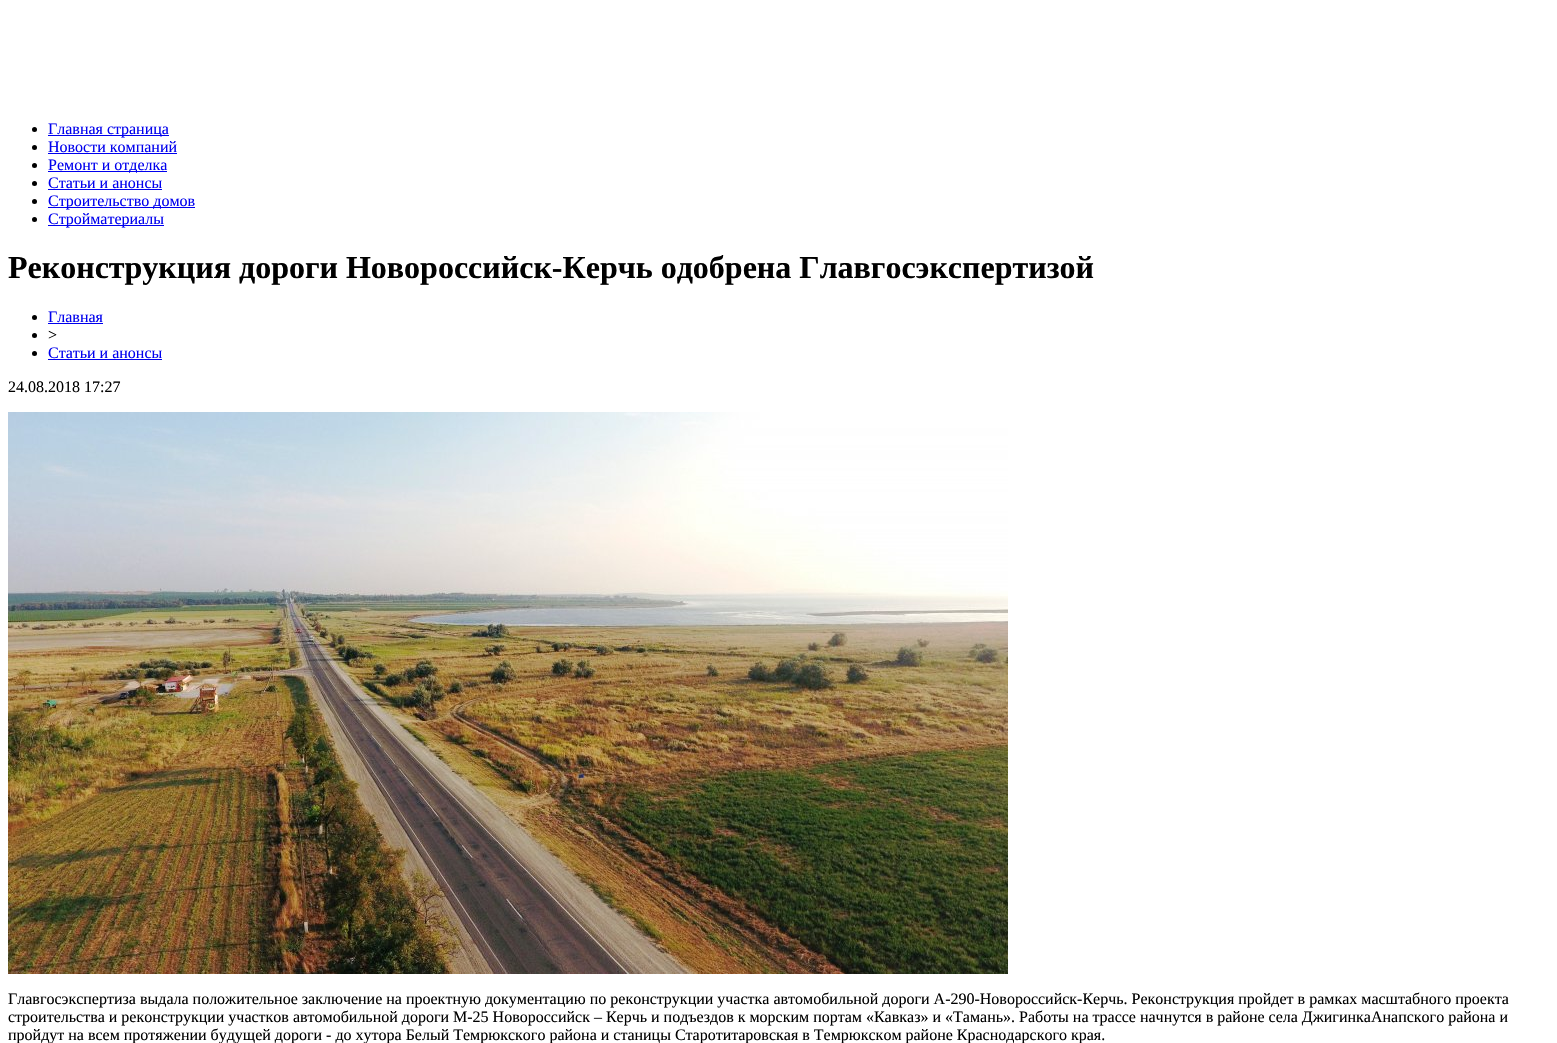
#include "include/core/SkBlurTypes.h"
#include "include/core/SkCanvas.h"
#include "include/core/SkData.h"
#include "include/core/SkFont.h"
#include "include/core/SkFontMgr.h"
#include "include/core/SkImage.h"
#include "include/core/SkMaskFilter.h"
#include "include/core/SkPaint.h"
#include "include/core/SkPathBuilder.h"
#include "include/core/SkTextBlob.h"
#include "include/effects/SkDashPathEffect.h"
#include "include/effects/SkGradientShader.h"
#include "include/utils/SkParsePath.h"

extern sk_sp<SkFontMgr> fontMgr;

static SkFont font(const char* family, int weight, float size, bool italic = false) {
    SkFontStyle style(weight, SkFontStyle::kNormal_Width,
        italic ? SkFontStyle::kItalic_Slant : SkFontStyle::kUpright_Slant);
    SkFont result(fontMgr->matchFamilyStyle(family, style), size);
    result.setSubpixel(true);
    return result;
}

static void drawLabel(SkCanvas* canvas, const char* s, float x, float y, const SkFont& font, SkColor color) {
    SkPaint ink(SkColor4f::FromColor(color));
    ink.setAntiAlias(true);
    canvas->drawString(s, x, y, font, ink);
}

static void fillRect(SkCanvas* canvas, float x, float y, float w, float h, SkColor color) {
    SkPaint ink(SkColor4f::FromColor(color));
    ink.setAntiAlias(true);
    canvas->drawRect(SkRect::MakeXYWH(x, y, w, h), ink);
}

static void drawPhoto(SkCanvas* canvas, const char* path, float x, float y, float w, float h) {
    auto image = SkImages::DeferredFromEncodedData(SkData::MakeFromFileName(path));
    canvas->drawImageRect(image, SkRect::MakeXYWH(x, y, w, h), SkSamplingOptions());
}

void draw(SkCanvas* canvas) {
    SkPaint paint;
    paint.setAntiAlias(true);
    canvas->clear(0xFFFFFFFF);
    paint.setColor(0xFF000000);
    canvas->drawCircle(34.5f, 129.5f, 2.5f, paint);
    fillRect(canvas, 48, 135, 121, 1, 0xFF0000EE);
    SkFont font1 = font("Liberation Serif", 400, 16);
    drawLabel(canvas, "Главная страница", 48, 134, font1, 0xFF0000EE);
    canvas->drawCircle(34.5f, 147.5f, 2.5f, paint);
    drawLabel(canvas, "Новости компаний", 48, 152, font1, 0xFF0000EE);
    fillRect(canvas, 48, 153, 129, 1, 0xFF0000EE);
    canvas->drawCircle(34.5f, 165.5f, 2.5f, paint);
    fillRect(canvas, 48, 171, 119, 1, 0xFF0000EE);
    drawLabel(canvas, "Ремонт и отделка", 48, 170, font1, 0xFF0000EE);
    canvas->drawCircle(34.5f, 183.5f, 2.5f, paint);
    drawLabel(canvas, "Статьи и анонсы", 48, 188, font1, 0xFF0000EE);
    fillRect(canvas, 48, 189, 114, 1, 0xFF0000EE);
    canvas->drawCircle(34.5f, 201.5f, 2.5f, paint);
    fillRect(canvas, 48, 207, 147, 1, 0xFF0000EE);
    drawLabel(canvas, "Строительство домов", 48, 206, font1, 0xFF0000EE);
    canvas->drawCircle(34.5f, 219.5f, 2.5f, paint);
    fillRect(canvas, 48, 225, 116, 1, 0xFF0000EE);
    drawLabel(canvas, "Стройматериалы", 48, 224, font1, 0xFF0000EE);
    SkFont font2 = font("Liberation Serif", 700, 32);
    drawLabel(canvas, "Реконструкция дороги Новороссийск-Керчь одобрена Главгосэкспертизой", 8, 278, font2, 0xFF000000);
    canvas->drawCircle(34.5f, 317.5f, 2.5f, paint);
    drawLabel(canvas, "Главная", 48, 322, font1, 0xFF0000EE);
    fillRect(canvas, 48, 323, 55, 1, 0xFF0000EE);
    canvas->drawCircle(34.5f, 335.5f, 2.5f, paint);
    drawLabel(canvas, ">", 48, 340, font1, 0xFF000000);
    canvas->drawCircle(34.5f, 353.5f, 2.5f, paint);
    drawLabel(canvas, "Статьи и анонсы", 48, 358, font1, 0xFF0000EE);
    fillRect(canvas, 48, 359, 114, 1, 0xFF0000EE);
    drawLabel(canvas, "24.08.2018 17:27", 8, 392, font1, 0xFF000000);
    drawPhoto(canvas, "assets/img1.png", 8, 412, 1000, 562);
    drawLabel(canvas, "Главгосэкспертиза выдала положительное заключение на проектную документацию по реконструкции участка автомобильной дороги А-290-Новороссийск-Керчь. Реконструкция пройдет в рамках масштабного проекта", 8, 1004, font1, 0xFF000000);
    drawLabel(canvas, "строительства и реконструкции участков автомобильной дороги М-25 Новороссийск – Керчь и подъездов к морским портам «Кавказ» и «Тамань». Работы на трассе начнутся в районе села ДжигинкаАнапского района и", 8, 1022, font1, 0xFF000000);
    drawLabel(canvas, "пройдут на всем протяжении будущей дороги - до хутора Белый Темрюкского района и станицы Старотитаровская в Темрюкском районе Краснодарского края.", 8, 1040, font1, 0xFF000000);
}
